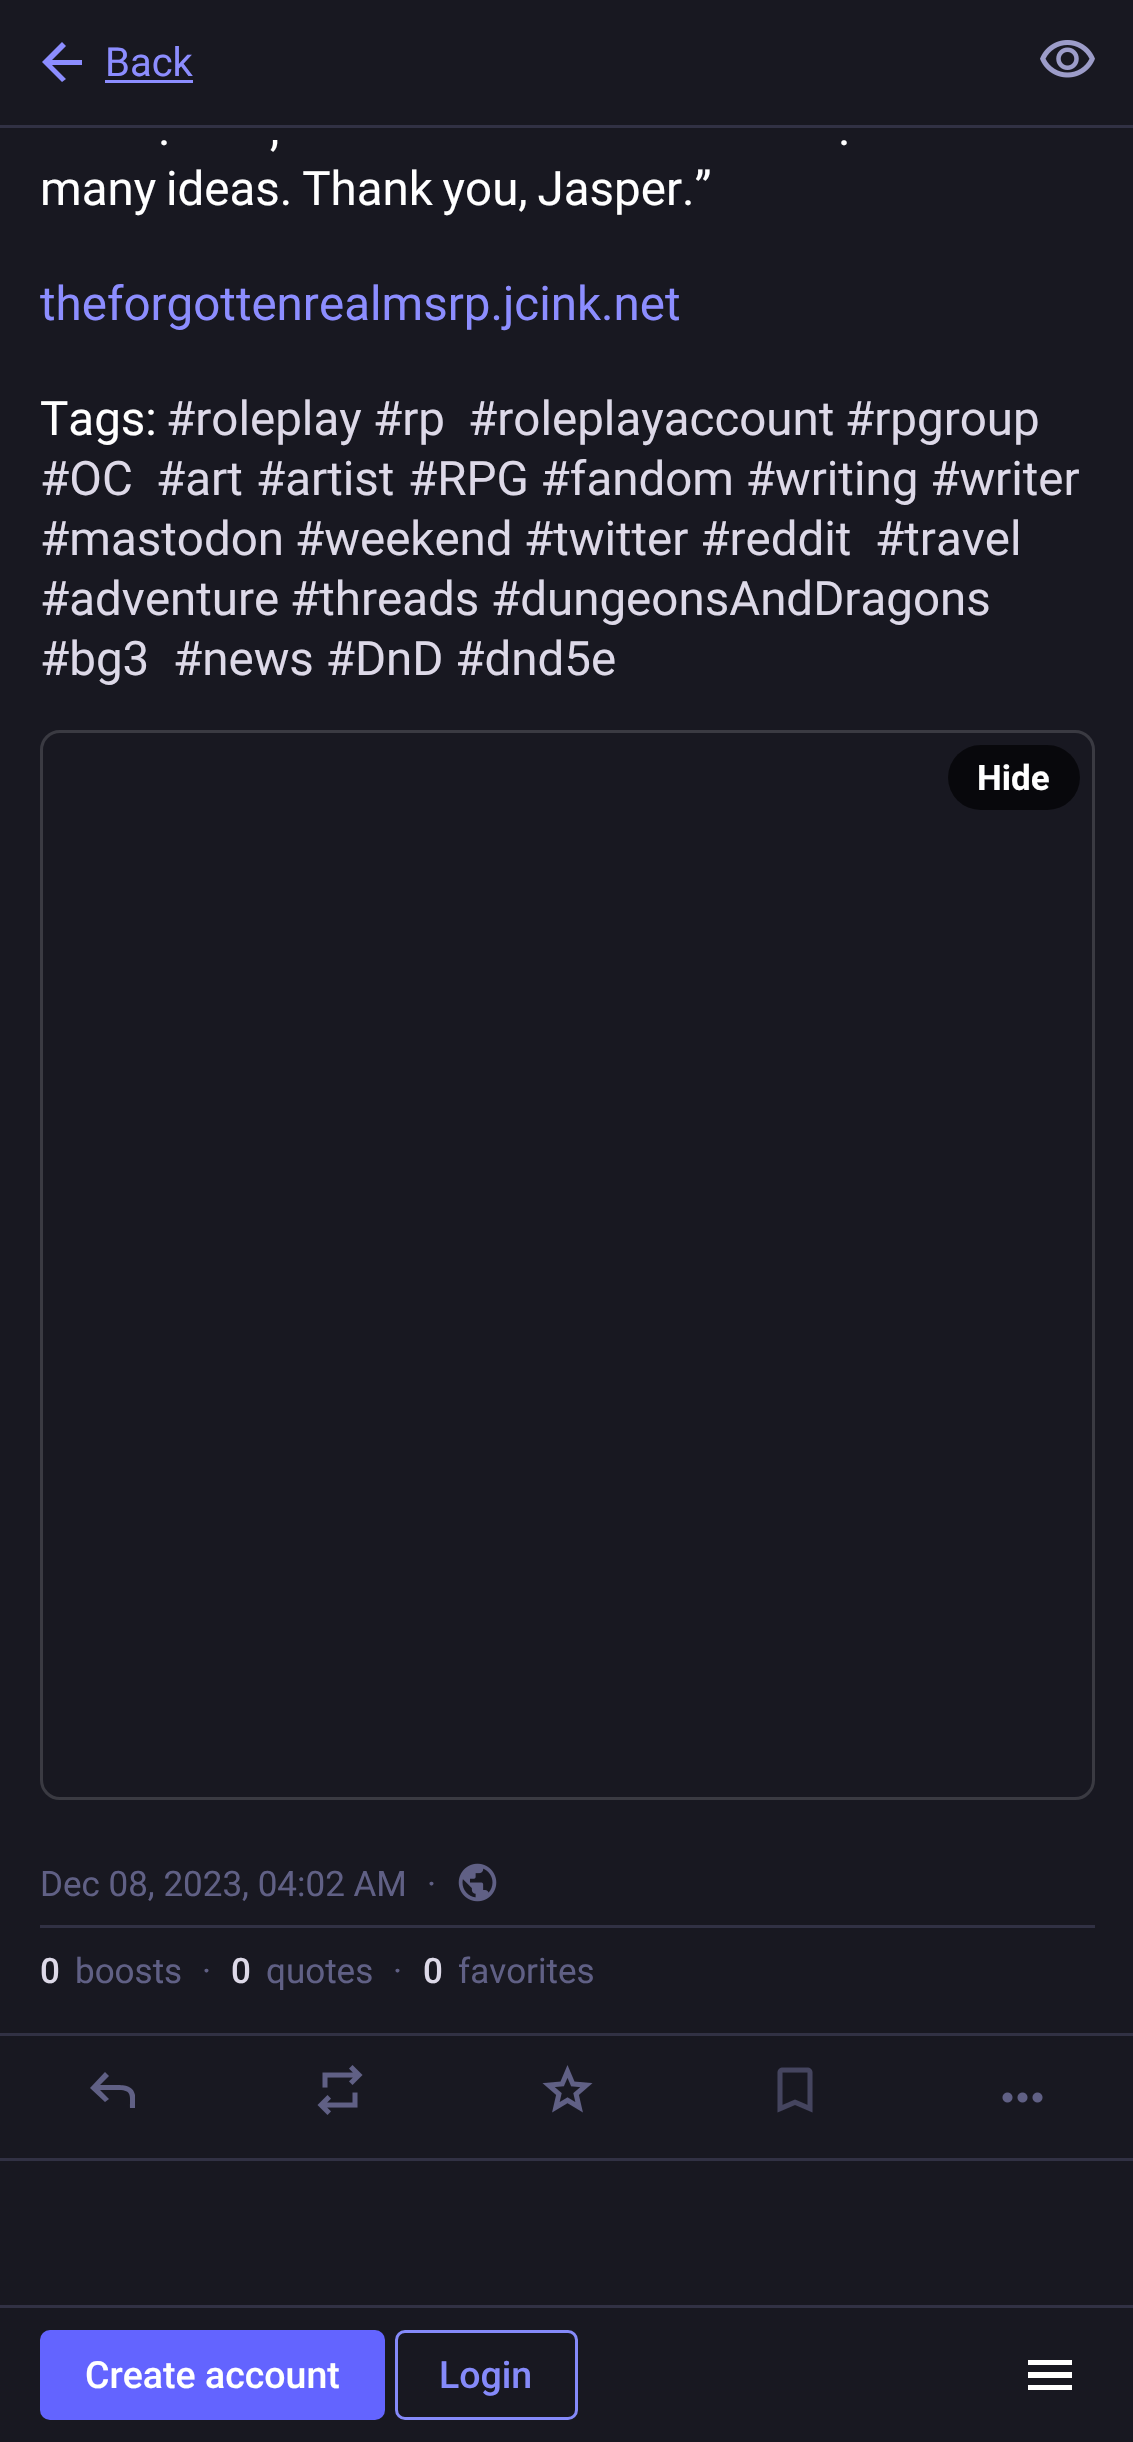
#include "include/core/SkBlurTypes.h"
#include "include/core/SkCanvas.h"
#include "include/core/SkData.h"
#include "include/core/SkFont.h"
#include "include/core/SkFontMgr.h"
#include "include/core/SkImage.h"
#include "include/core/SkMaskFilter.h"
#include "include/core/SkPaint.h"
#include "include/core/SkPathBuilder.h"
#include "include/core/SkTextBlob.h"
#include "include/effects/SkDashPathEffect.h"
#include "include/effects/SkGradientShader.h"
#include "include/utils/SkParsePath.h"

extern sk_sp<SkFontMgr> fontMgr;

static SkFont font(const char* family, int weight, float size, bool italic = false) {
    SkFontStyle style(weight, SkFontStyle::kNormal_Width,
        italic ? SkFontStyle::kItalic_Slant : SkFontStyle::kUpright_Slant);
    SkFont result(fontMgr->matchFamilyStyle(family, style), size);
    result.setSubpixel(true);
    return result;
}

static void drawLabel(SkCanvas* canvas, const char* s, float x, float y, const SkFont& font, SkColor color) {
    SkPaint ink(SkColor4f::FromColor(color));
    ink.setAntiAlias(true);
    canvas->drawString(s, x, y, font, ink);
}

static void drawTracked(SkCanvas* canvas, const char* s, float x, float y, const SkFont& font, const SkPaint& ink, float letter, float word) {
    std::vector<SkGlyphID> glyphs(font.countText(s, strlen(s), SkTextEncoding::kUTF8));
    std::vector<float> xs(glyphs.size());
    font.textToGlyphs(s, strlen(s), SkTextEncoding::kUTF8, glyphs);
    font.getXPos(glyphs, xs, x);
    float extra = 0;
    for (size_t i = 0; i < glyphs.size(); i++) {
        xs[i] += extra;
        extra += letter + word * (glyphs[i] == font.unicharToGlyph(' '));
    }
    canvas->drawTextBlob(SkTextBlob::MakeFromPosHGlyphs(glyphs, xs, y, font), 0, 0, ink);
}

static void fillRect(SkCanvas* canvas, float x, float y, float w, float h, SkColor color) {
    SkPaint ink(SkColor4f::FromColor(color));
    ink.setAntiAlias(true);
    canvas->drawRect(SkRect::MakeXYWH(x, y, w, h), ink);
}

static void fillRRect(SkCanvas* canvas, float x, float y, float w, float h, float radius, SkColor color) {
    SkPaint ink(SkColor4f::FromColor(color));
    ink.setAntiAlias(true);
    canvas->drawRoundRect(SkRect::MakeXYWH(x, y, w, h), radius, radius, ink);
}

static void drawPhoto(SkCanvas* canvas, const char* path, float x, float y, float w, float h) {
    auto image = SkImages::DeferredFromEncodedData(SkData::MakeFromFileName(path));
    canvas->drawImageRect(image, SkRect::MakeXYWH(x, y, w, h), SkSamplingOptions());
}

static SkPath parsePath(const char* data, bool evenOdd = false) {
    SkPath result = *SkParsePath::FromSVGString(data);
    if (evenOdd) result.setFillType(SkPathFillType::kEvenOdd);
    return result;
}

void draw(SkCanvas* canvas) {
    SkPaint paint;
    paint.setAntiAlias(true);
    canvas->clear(0xFF181821);
    fillRect(canvas, 0, 125, 1133, 3, 0xFF313144);
    paint.setColor(0xFF8C8DFF);
    canvas->drawPath(parsePath("M52 65L66 79L62 82L42 62L62 42L66 46L52 60H82V65Z"), paint);
    SkFont font1 = font("Roboto", 400, 40);
    drawLabel(canvas, "Back", 105, 76, font1, 0xFF8C8DFF);
    fillRect(canvas, 105, 80, 88, 3, 0xFF8C8DFF);
    drawPhoto(canvas, "assets/img1.png", 1040, 40, 55, 38);
    SkFont font2 = font("Roboto", 400, 47.5f);
    drawLabel(canvas, ".", 158, 145, font2, 0xFFFFFFFF);
    drawLabel(canvas, ",", 270, 145, font2, 0xFFFFFFFF);
    drawLabel(canvas, ".", 838, 145, font2, 0xFFFFFFFF);
    paint.setColor(0xFFFFFFFF);
    drawTracked(canvas, "many ideas. Thank you, Jasper.”", 40, 205, font2, paint, 0, -2);
    drawLabel(canvas, "theforgottenrealmsrp.jcink.net", 40, 320, font2, 0xFF8C8DFF);
    drawLabel(canvas, "Tags:", 40, 435, font2, 0xFFFFFFFF);
    drawLabel(canvas, "#roleplay", 166, 435, font2, 0xFFDDD9E8);
    drawLabel(canvas, "#rp", 373, 435, font2, 0xFFDDD9E8);
    drawLabel(canvas, "#roleplayaccount", 468, 435, font2, 0xFFDDD9E8);
    drawLabel(canvas, "#rpgroup", 845, 435, font2, 0xFFDDD9E8);
    drawLabel(canvas, "#OC", 40, 495, font2, 0xFFDDD9E8);
    drawLabel(canvas, "#art", 156, 495, font2, 0xFFDDD9E8);
    drawLabel(canvas, "#artist", 256, 495, font2, 0xFFDDD9E8);
    drawLabel(canvas, "#RPG #fandom #writing #writer", 408, 495, font2, 0xFFDDD9E8);
    drawLabel(canvas, "#mastodon", 40, 555, font2, 0xFFDDD9E8);
    drawLabel(canvas, "#weekend", 295, 555, font2, 0xFFDDD9E8);
    drawLabel(canvas, "#twitter #reddit", 524, 555, font2, 0xFFDDD9E8);
    drawLabel(canvas, "#travel", 875, 555, font2, 0xFFDDD9E8);
    drawLabel(canvas, "#adventure", 40, 615, font2, 0xFFDDD9E8);
    drawLabel(canvas, "#threads", 290, 615, font2, 0xFFDDD9E8);
    drawLabel(canvas, "#dungeonsAndDragons", 491, 615, font2, 0xFFDDD9E8);
    drawLabel(canvas, "#bg3", 40, 675, font2, 0xFFDDD9E8);
    drawLabel(canvas, "#news #DnD #dnd5e", 173, 675, font2, 0xFFDDD9E8);
    paint.setStroke(true);
    paint.setStrokeWidth(3);
    paint.setColor(0xFF3A3A42);
    canvas->drawRoundRect(SkRect::MakeXYWH(41.5f, 731.5f, 1052, 1067), 18.5f, 18.5f, paint);
    fillRRect(canvas, 948, 745, 132, 65, 32.5f, 0xFF08080C);
    SkFont font3 = font("Roboto", 700, 35);
    drawLabel(canvas, "Hide", 977, 790, font3, 0xFFFFFFFF);
    fillRect(canvas, 40, 1925, 1055, 3, 0xFF313144);
    SkFont font4 = font("Roboto", 400, 35);
    drawLabel(canvas, "Dec 08, 2023, 04:02 AM", 40, 1896, font4, 0xFF606085);
    drawLabel(canvas, "·", 427, 1896, font4, 0xFF606085);
    drawPhoto(canvas, "assets/img2.png", 458, 1863, 39, 39);
    SkFont font5 = font("Roboto", 500, 35);
    drawLabel(canvas, "0", 40, 1983, font5, 0xFFDDD9E8);
    drawLabel(canvas, "boosts", 75, 1983, font4, 0xFF606085);
    drawLabel(canvas, "·", 202, 1983, font4, 0xFF606085);
    drawLabel(canvas, "0", 231, 1983, font5, 0xFFDDD9E8);
    drawLabel(canvas, "quotes", 266, 1983, font4, 0xFF606085);
    drawLabel(canvas, "·", 393, 1983, font4, 0xFF606085);
    drawLabel(canvas, "0", 423, 1983, font5, 0xFFDDD9E8);
    drawLabel(canvas, "favorites", 458, 1983, font4, 0xFF606085);
    fillRect(canvas, 0, 2033, 1133, 3, 0xFF313144);
    fillRect(canvas, 0, 2158, 1133, 3, 0xFF313144);
    paint.setStroke(false);
    paint.setColor(0xFF606085);
    canvas->drawPath(parsePath("M130 2108C130 2096 132 2090 119 2090H100L109 2099L105 2102L90 2088L105 2072L109 2076L100 2085H115C123 2085 133 2085 135 2095V2108Z"), paint);
    drawPhoto(canvas, "assets/img3.png", 317, 2065, 46, 50);
    drawPhoto(canvas, "assets/img4.png", 542, 2065, 51, 48);
    drawPhoto(canvas, "assets/img5.png", 777, 2067, 36, 46);
    drawPhoto(canvas, "assets/img6.png", 1002, 2092, 41, 11);
    fillRect(canvas, 0, 2305, 1133, 3, 0xFF313144);
    fillRRect(canvas, 40, 2330, 345, 90, 10, 0xFF6364FF);
    SkFont font6 = font("Roboto", 500, 37.5f);
    drawLabel(canvas, "Create account", 85, 2388, font6, 0xFFFFFFFF);
    paint.setStroke(true);
    paint.setColor(0xFF858AFA);
    canvas->drawRoundRect(SkRect::MakeXYWH(396.5f, 2331.5f, 180, 87), 8.5f, 8.5f, paint);
    drawLabel(canvas, "Login", 439, 2388, font6, 0xFF858AFA);
    paint.setStroke(false);
    paint.setColor(0xFFFFFFFF);
    canvas->drawPath(parsePath("M1028 2390V2385H1072V2390ZM1028 2378V2372H1072V2378ZM1028 2365V2360H1072V2365Z"), paint);
}
